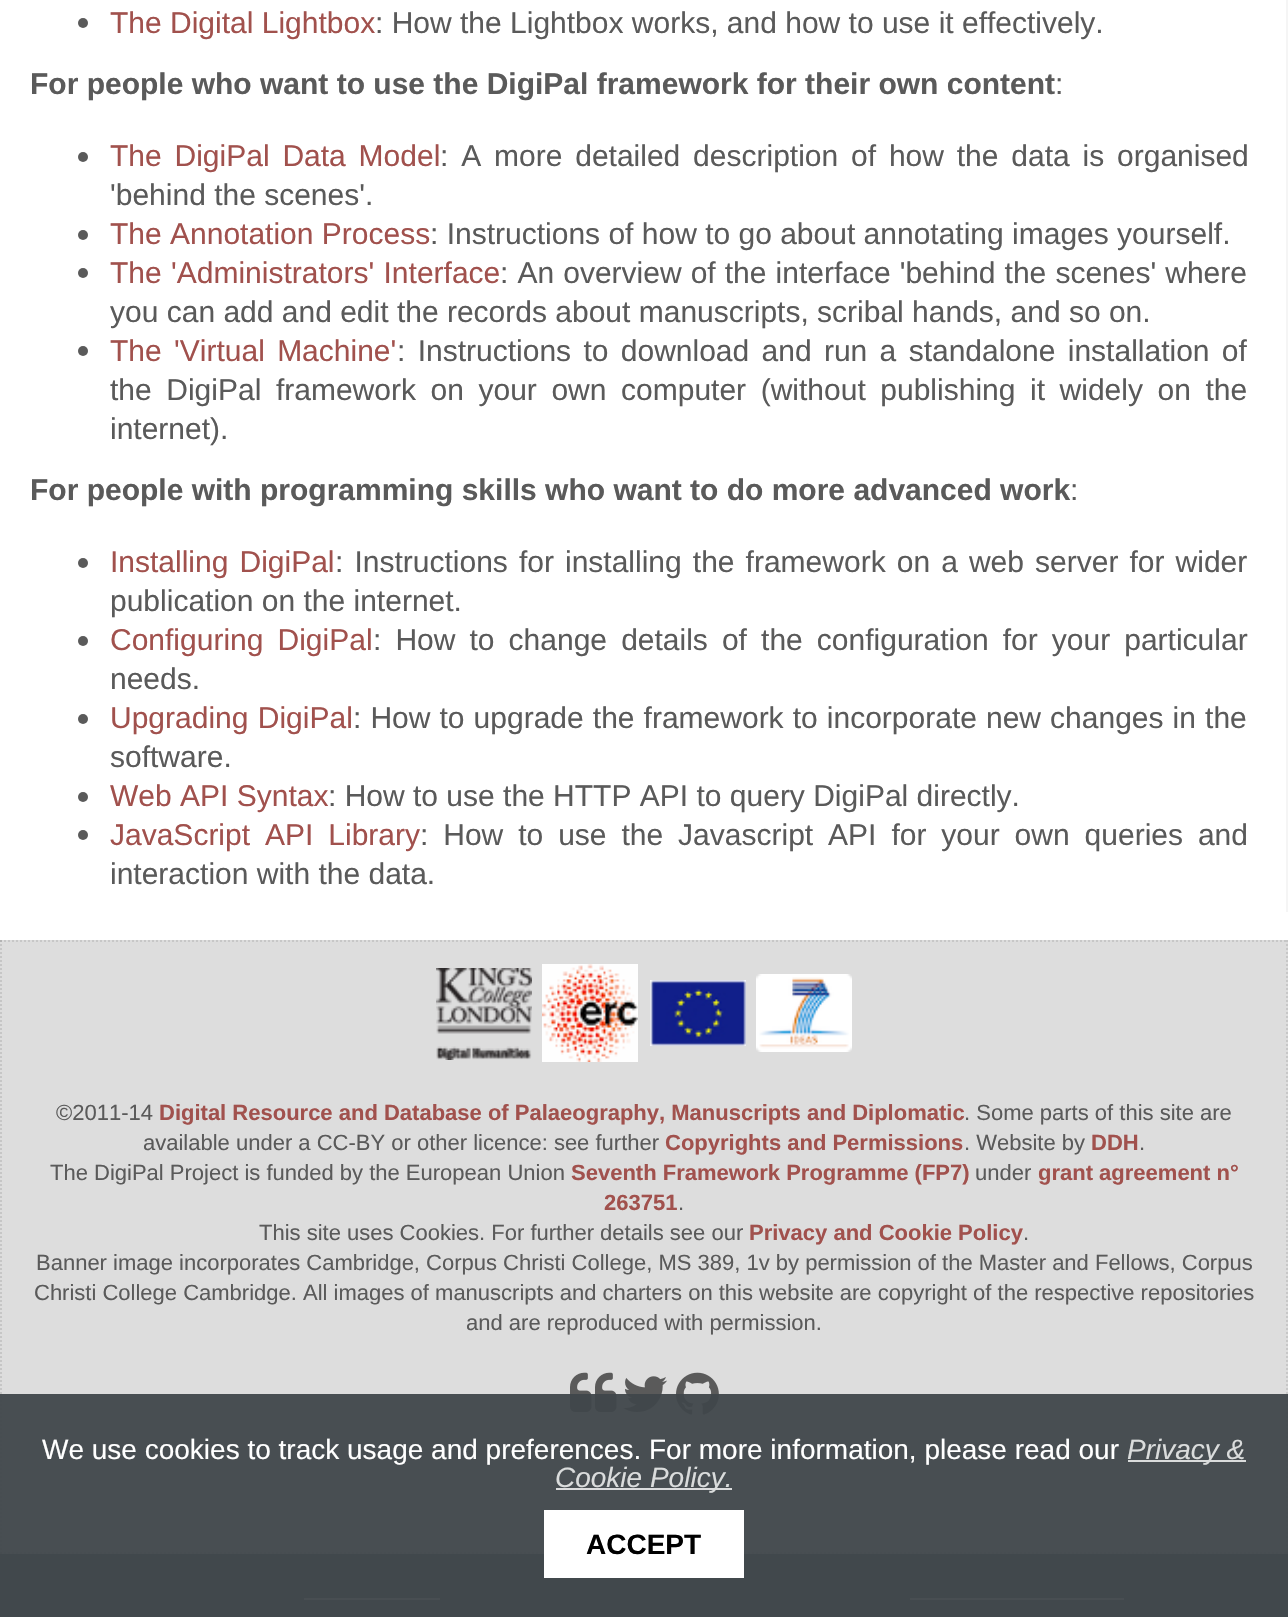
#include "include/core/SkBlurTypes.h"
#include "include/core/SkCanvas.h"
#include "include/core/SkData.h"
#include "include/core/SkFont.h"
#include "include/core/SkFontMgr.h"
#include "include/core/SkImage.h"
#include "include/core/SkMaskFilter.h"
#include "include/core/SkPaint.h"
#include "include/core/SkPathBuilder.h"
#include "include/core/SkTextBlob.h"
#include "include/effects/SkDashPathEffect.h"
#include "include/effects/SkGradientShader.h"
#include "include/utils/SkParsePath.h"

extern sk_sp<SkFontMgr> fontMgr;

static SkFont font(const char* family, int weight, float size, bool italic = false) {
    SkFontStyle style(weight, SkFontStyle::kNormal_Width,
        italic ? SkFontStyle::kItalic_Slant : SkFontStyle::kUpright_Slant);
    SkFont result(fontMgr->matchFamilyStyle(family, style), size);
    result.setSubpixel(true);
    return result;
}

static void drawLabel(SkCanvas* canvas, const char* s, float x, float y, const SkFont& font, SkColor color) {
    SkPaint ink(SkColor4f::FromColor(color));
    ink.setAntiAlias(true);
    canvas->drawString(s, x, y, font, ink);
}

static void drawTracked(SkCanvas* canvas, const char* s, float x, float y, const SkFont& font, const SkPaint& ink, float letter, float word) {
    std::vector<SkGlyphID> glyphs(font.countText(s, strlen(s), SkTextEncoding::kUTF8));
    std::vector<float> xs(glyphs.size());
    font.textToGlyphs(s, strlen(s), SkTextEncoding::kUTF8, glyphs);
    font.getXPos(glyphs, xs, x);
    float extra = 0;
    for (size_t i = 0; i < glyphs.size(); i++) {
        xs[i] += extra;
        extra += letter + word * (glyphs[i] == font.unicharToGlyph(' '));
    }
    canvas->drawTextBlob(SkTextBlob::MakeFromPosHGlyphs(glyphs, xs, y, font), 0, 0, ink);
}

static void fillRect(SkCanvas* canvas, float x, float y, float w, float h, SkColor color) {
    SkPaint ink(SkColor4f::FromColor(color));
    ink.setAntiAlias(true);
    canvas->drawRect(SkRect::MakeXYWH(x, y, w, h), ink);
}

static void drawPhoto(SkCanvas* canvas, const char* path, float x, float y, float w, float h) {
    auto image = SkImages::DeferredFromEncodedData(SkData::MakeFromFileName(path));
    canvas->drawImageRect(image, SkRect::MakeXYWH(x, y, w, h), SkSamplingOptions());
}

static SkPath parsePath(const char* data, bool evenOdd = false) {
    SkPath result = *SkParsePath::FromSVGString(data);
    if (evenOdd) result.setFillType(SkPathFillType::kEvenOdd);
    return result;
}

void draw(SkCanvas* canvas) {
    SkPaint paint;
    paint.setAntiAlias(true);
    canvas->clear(0xFFFFFFFF);
    paint.setColor(0xFFF5F5F5);
    canvas->drawPath(parsePath("M0-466H1278C1284-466 1288-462 1288-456V912H0ZM0-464H1278C1282-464 1286-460 1286-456V912H0Z", true), paint);
    paint.setColor(0xFF5A5A5A);
    canvas->drawCircle(83, 23, 5, paint);
    SkFont font1 = font("Liberation Sans", 400, 30);
    drawLabel(canvas, "The Digital Lightbox", 110, 33, font1, 0xFFA1514D);
    drawLabel(canvas, ": How the Lightbox works, and how to use it effectively.", 375, 33, font1, 0xFF5A5A5A);
    SkFont font2 = font("Liberation Sans", 700, 30);
    drawLabel(canvas, "For people who want to use the DigiPal framework for their own content", 30, 94, font2, 0xFF5A5A5A);
    drawLabel(canvas, ":", 1055, 94, font1, 0xFF5A5A5A);
    canvas->drawCircle(83, 157, 5, paint);
    paint.setColor(0xFFA1514D);
    drawTracked(canvas, "The DigiPal Data Model", 110, 166, font1, paint, 0, 4.5f);
    paint.setColor(0xFF5A5A5A);
    drawTracked(canvas, ": A more detailed description of how the data is organised", 440, 166, font1, paint, 0, 4.5f);
    drawLabel(canvas, "'behind the scenes'.", 110, 205, font1, 0xFF5A5A5A);
    canvas->drawCircle(83, 235, 5, paint);
    drawLabel(canvas, "The Annotation Process", 110, 244, font1, 0xFFA1514D);
    drawLabel(canvas, ": Instructions of how to go about annotating images yourself.", 430, 244, font1, 0xFF5A5A5A);
    canvas->drawCircle(83, 273, 5, paint);
    paint.setColor(0xFFA1514D);
    drawTracked(canvas, "The 'Administrators' Interface", 110, 283, font1, paint, 0, 1);
    paint.setColor(0xFF5A5A5A);
    drawTracked(canvas, ": An overview of the interface 'behind the scenes' where", 500, 283, font1, paint, 0, 0.75f);
    drawLabel(canvas, "you can add and edit the records about manuscripts, scribal hands, and so on.", 110, 322, font1, 0xFF5A5A5A);
    canvas->drawCircle(83, 351, 5, paint);
    paint.setColor(0xFFA1514D);
    drawTracked(canvas, "The 'Virtual Machine'", 110, 361, font1, paint, 0, 4);
    paint.setColor(0xFF5A5A5A);
    drawTracked(canvas, ": Instructions to download and run a standalone installation of", 397, 361, font1, paint, 0, 4);
    drawTracked(canvas, "the DigiPal framework on your own computer (without publishing it widely on the", 110, 400, font1, paint, 0, 6.25f);
    drawLabel(canvas, "internet).", 110, 439, font1, 0xFF5A5A5A);
    drawLabel(canvas, "For people with programming skills who want to do more advanced work", 30, 500, font2, 0xFF5A5A5A);
    drawLabel(canvas, ":", 1070, 500, font1, 0xFF5A5A5A);
    canvas->drawCircle(83, 563, 5, paint);
    paint.setColor(0xFFA1514D);
    drawTracked(canvas, "Installing DigiPal", 110, 572, font1, paint, 0, 2.75f);
    paint.setColor(0xFF5A5A5A);
    drawTracked(canvas, ": Instructions for installing the framework on a web server for wider", 335, 572, font1, paint, 0, 2.75f);
    drawLabel(canvas, "publication on the internet.", 110, 611, font1, 0xFF5A5A5A);
    canvas->drawCircle(83, 641, 5, paint);
    paint.setColor(0xFFA1514D);
    drawTracked(canvas, "Configuring DigiPal", 110, 650, font1, paint, 0, 5.75f);
    paint.setColor(0xFF5A5A5A);
    drawTracked(canvas, ": How to change details of the configuration for your particular", 373, 650, font1, paint, 0, 5.75f);
    drawLabel(canvas, "needs.", 110, 689, font1, 0xFF5A5A5A);
    canvas->drawCircle(83, 719, 5, paint);
    paint.setColor(0xFFA1514D);
    drawTracked(canvas, "Upgrading DigiPal", 110, 728, font1, paint, 0, 1);
    paint.setColor(0xFF5A5A5A);
    drawTracked(canvas, ": How to upgrade the framework to incorporate new changes in the", 353, 728, font1, paint, 0, 0.75f);
    drawLabel(canvas, "software.", 110, 767, font1, 0xFF5A5A5A);
    canvas->drawCircle(83, 797, 5, paint);
    drawLabel(canvas, "Web API Syntax", 110, 806, font1, 0xFFA1514D);
    drawLabel(canvas, ": How to use the HTTP API to query DigiPal directly.", 328, 806, font1, 0xFF5A5A5A);
    canvas->drawCircle(83, 835, 5, paint);
    paint.setColor(0xFFA1514D);
    drawTracked(canvas, "JavaScript API Library", 110, 845, font1, paint, 0, 6.6f);
    paint.setColor(0xFF5A5A5A);
    drawTracked(canvas, ": How to use the Javascript API for your own queries and", 420, 845, font1, paint, 0, 6.6f);
    drawLabel(canvas, "interaction with the data.", 110, 884, font1, 0xFF5A5A5A);
    fillRect(canvas, 0, 940, 1288, 614, 0xFFDDDDDD);
    paint.setStroke(true);
    paint.setStrokeWidth(2);
    paint.setColor(0xFFC7C7C7);
    paint.setPathEffect(SkDashPathEffect::Make({{2, 2}}, 0));
    canvas->drawPath(parsePath("M0 941H1288"), paint);
    paint.setPathEffect(nullptr);
    paint.setPathEffect(SkDashPathEffect::Make({{2, 2}}, 0));
    canvas->drawPath(parsePath("M1287 940V1554"), paint);
    paint.setPathEffect(nullptr);
    paint.setPathEffect(SkDashPathEffect::Make({{2, 2}}, 0));
    canvas->drawPath(parsePath("M0 1553H1288"), paint);
    paint.setPathEffect(nullptr);
    paint.setColor(0x1A000000);
    paint.setPathEffect(SkDashPathEffect::Make({{2, 2}}, 0));
    canvas->drawPath(parsePath("M1 940V1554"), paint);
    paint.setPathEffect(nullptr);
    drawPhoto(canvas, "assets/img1.png", 436, 968, 96, 92);
    drawPhoto(canvas, "assets/img2.png", 542, 964, 96, 98);
    drawPhoto(canvas, "assets/img3.png", 650, 980, 96, 66);
    drawPhoto(canvas, "assets/img4.png", 756, 974, 96, 78);
    SkFont font3 = font("Liberation Sans", 400, 22);
    drawLabel(canvas, "©2011-14", 56, 1120, font3, 0xFF5A5A5A);
    SkFont font4 = font("Liberation Sans", 700, 22);
    drawLabel(canvas, "Digital Resource and Database of Palaeography, Manuscripts and Diplomatic", 159, 1120, font4, 0xFFA1514D);
    drawLabel(canvas, ". Some parts of this site are", 964, 1120, font3, 0xFF5A5A5A);
    drawLabel(canvas, "available under a CC-BY or other licence: see further", 143, 1150, font3, 0xFF5A5A5A);
    drawLabel(canvas, "Copyrights and Permissions", 665, 1150, font4, 0xFFA1514D);
    drawLabel(canvas, ". Website by", 964, 1150, font3, 0xFF5A5A5A);
    drawLabel(canvas, "DDH", 1091, 1150, font4, 0xFFA1514D);
    drawLabel(canvas, ".", 1139, 1150, font3, 0xFF5A5A5A);
    drawLabel(canvas, "The DigiPal Project is funded by the European Union", 50, 1180, font3, 0xFF5A5A5A);
    drawLabel(canvas, "Seventh Framework Programme (FP7)", 571, 1180, font4, 0xFFA1514D);
    drawLabel(canvas, "under", 975, 1180, font3, 0xFF5A5A5A);
    drawLabel(canvas, "grant agreement n°", 1038, 1180, font4, 0xFFA1514D);
    drawLabel(canvas, "263751", 604, 1210, font4, 0xFFA1514D);
    drawLabel(canvas, ".", 678, 1210, font3, 0xFF5A5A5A);
    drawLabel(canvas, "This site uses Cookies. For further details see our", 259, 1240, font3, 0xFF5A5A5A);
    drawLabel(canvas, "Privacy and Cookie Policy", 749, 1240, font4, 0xFFA1514D);
    drawLabel(canvas, ".", 1023, 1240, font3, 0xFF5A5A5A);
    drawLabel(canvas, "Banner image incorporates Cambridge, Corpus Christi College, MS 389, 1v by permission of the Master and Fellows, Corpus", 36, 1270, font3, 0xFF5A5A5A);
    drawLabel(canvas, "Christi College Cambridge. All images of manuscripts and charters on this website are copyright of the respective repositories", 34, 1300, font3, 0xFF5A5A5A);
    drawLabel(canvas, "and are reproduced with permission.", 466, 1330, font3, 0xFF5A5A5A);
    drawPhoto(canvas, "assets/img5.png", 570, 1372, 47, 40);
    drawPhoto(canvas, "assets/img6.png", 623, 1376, 44, 36);
    drawPhoto(canvas, "assets/img7.png", 676, 1372, 43, 43);
    fillRect(canvas, 0, 1554, 1288, 63, 0xFF5A6469);
    fillRect(canvas, 304, 1598, 136, 2, 0xFFDEE0E1);
    fillRect(canvas, 910, 1598, 214, 2, 0xFFDEE0E1);
    fillRect(canvas, 0, 1394, 1288, 223, 0xF23F464A);
    SkFont font5 = font("Liberation Sans", 400, 28);
    drawLabel(canvas, "We use cookies to track usage and preferences. For more information, please read our", 42, 1459, font5, 0xFFFFFFFF);
    fillRect(canvas, 1128, 1460, 118, 2, 0xFFDADCDC);
    SkFont font6 = font("Liberation Sans", 400, 28, true);
    drawLabel(canvas, "Privacy &", 1127, 1459, font6, 0xFFDADCDC);
    fillRect(canvas, 556, 1488, 176, 2, 0xCCFFFFFF);
    drawLabel(canvas, "Cookie Policy.", 555, 1487, font6, 0xFFDADCDC);
    fillRect(canvas, 544, 1510, 200, 68, 0xFFFFFFFF);
    SkFont font7 = font("Liberation Sans", 700, 28);
    drawLabel(canvas, "ACCEPT", 586, 1554, font7, 0xFF000000);
}
